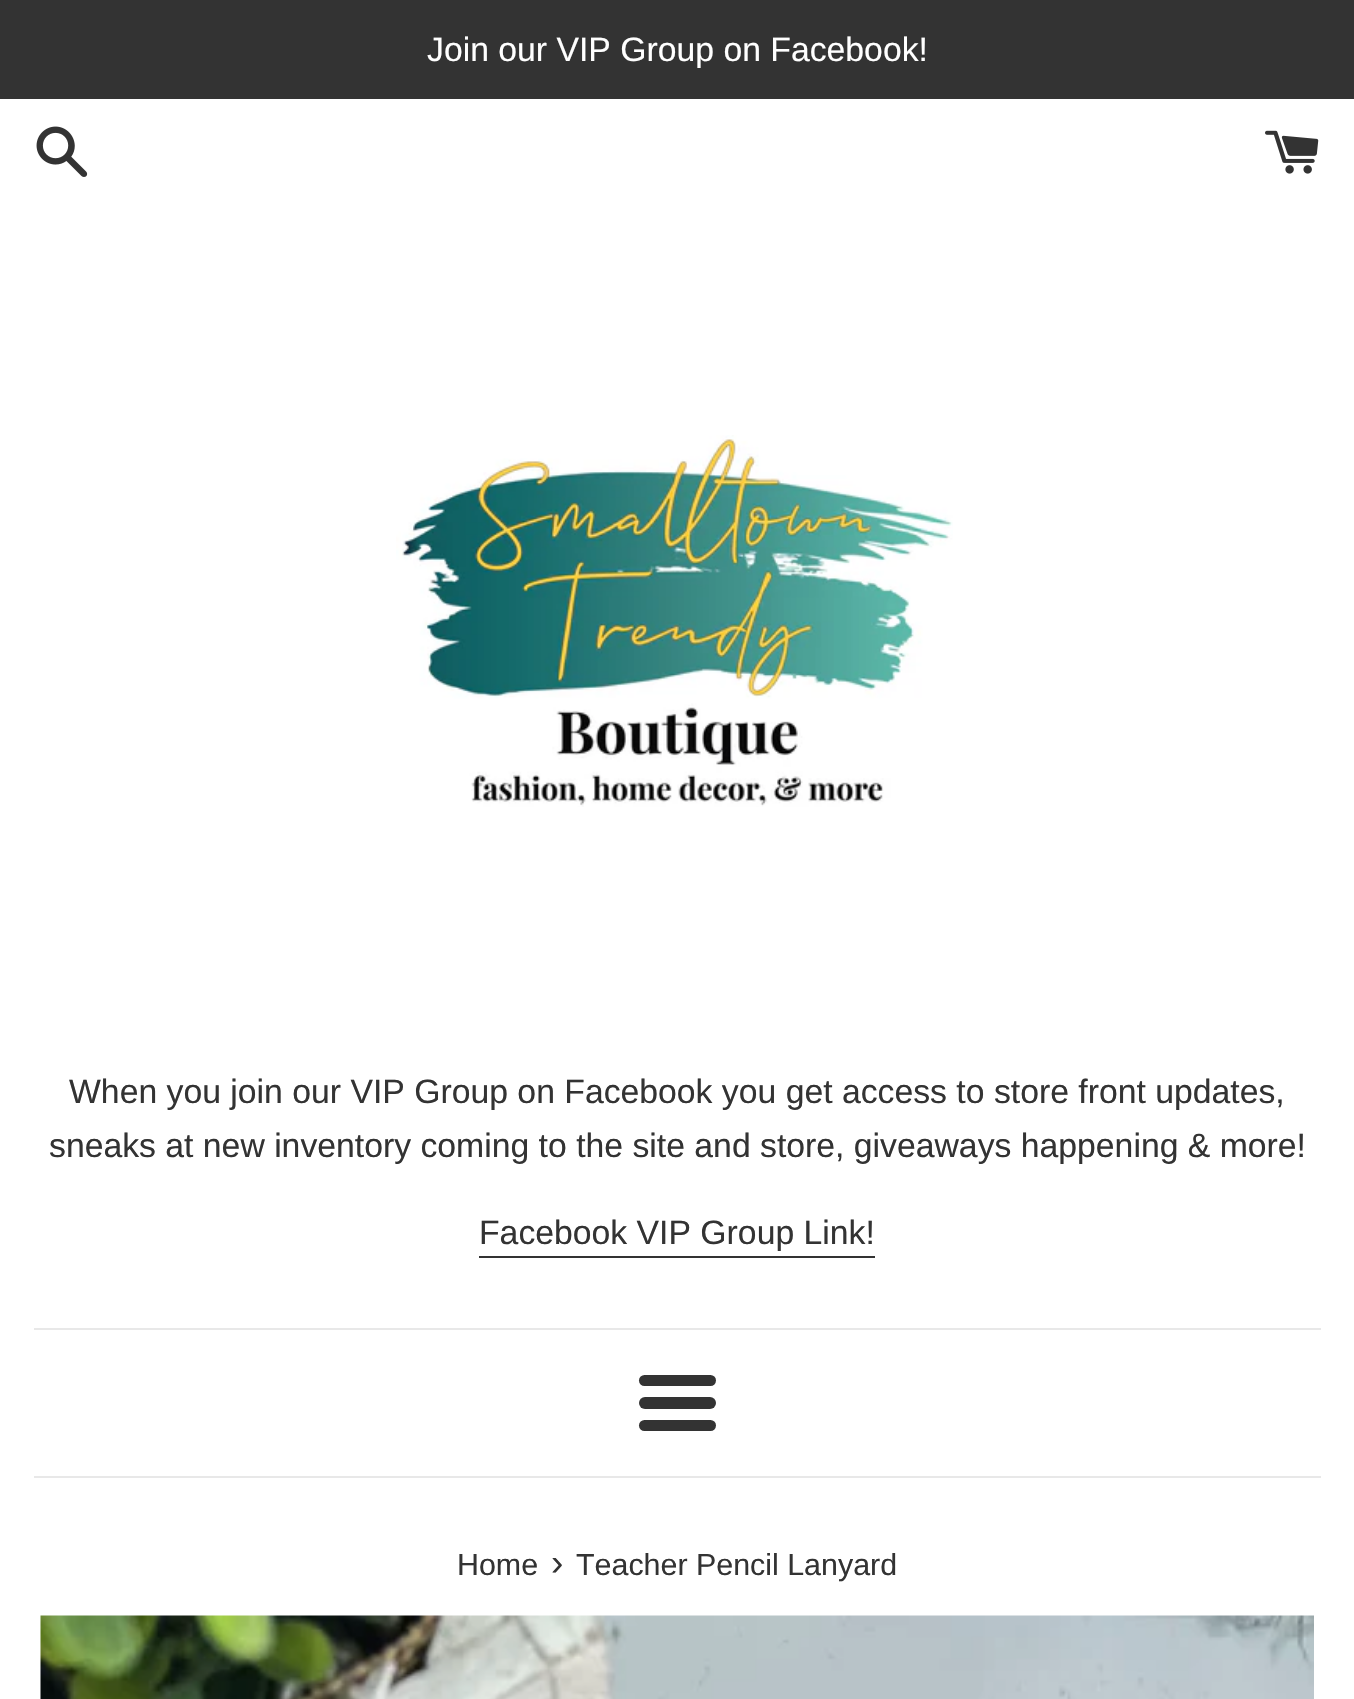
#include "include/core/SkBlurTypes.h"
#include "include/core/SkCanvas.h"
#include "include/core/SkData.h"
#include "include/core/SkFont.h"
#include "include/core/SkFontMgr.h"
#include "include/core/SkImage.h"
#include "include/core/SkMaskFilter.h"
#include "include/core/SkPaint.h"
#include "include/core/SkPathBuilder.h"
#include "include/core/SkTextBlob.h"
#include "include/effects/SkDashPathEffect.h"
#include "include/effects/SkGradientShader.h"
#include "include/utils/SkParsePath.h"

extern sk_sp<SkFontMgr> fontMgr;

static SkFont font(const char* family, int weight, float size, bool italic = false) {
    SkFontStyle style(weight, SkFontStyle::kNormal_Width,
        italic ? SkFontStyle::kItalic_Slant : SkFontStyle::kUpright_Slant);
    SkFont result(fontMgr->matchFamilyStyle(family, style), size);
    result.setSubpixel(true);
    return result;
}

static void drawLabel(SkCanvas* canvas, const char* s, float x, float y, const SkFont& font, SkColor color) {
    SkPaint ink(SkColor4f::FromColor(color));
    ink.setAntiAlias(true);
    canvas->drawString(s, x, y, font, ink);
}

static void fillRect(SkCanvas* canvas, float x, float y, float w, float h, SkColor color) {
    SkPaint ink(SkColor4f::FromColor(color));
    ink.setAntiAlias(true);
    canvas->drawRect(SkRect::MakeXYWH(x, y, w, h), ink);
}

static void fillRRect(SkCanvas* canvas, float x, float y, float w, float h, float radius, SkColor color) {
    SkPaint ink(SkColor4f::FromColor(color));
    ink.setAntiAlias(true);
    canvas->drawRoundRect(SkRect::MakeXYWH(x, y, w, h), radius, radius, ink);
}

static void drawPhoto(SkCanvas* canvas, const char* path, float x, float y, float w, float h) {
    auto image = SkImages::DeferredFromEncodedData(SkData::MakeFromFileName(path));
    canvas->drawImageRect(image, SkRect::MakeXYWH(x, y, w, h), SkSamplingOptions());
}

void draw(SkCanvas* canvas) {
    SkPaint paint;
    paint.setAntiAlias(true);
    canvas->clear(0xFFFFFFFF);
    fillRect(canvas, 0, 0, 1354, 99, 0xFF333333);
    SkFont font1 = font("Liberation Sans", 400, 33.75f);
    drawLabel(canvas, "Join our VIP Group on Facebook!", 427, 61, font1, 0xFFFFFFFF);
    drawPhoto(canvas, "assets/img1.png", 36, 126, 52, 51);
    drawPhoto(canvas, "assets/img2.png", 1265, 130, 54, 44);
    drawPhoto(canvas, "assets/img3.png", 396, 435, 557, 372);
    drawLabel(canvas, "When you join our VIP Group on Facebook you get access to store front updates,", 69, 1103, font1, 0xFF333333);
    drawLabel(canvas, "sneaks at new inventory coming to the site and store, giveaways happening & more!", 49, 1157, font1, 0xFF333333);
    drawLabel(canvas, "Facebook VIP Group Link!", 479, 1244, font1, 0xFF333333);
    fillRect(canvas, 479, 1256, 396, 2, 0xFF333333);
    fillRect(canvas, 34, 1328, 1287, 2, 0xFFE8E8E8);
    fillRRect(canvas, 639, 1375, 77, 11, 5.5f, 0xFF333333);
    fillRRect(canvas, 639, 1397, 77, 12, 6, 0xFF333333);
    fillRRect(canvas, 639, 1420, 77, 11, 5.5f, 0xFF333333);
    fillRect(canvas, 34, 1476, 1287, 2, 0xFFE8E8E8);
    SkFont font2 = font("Liberation Sans", 400, 30.4f);
    drawLabel(canvas, "Home", 457, 1575, font2, 0xFF333333);
    SkFont font3 = font("Liberation Sans", 400, 37);
    drawLabel(canvas, "›", 551, 1575, font3, 0xFF333333);
    drawLabel(canvas, "Teacher Pencil Lanyard", 576, 1575, font2, 0xFF333333);
    drawPhoto(canvas, "assets/img4.png", 40, 1615, 1274, 84);
}
